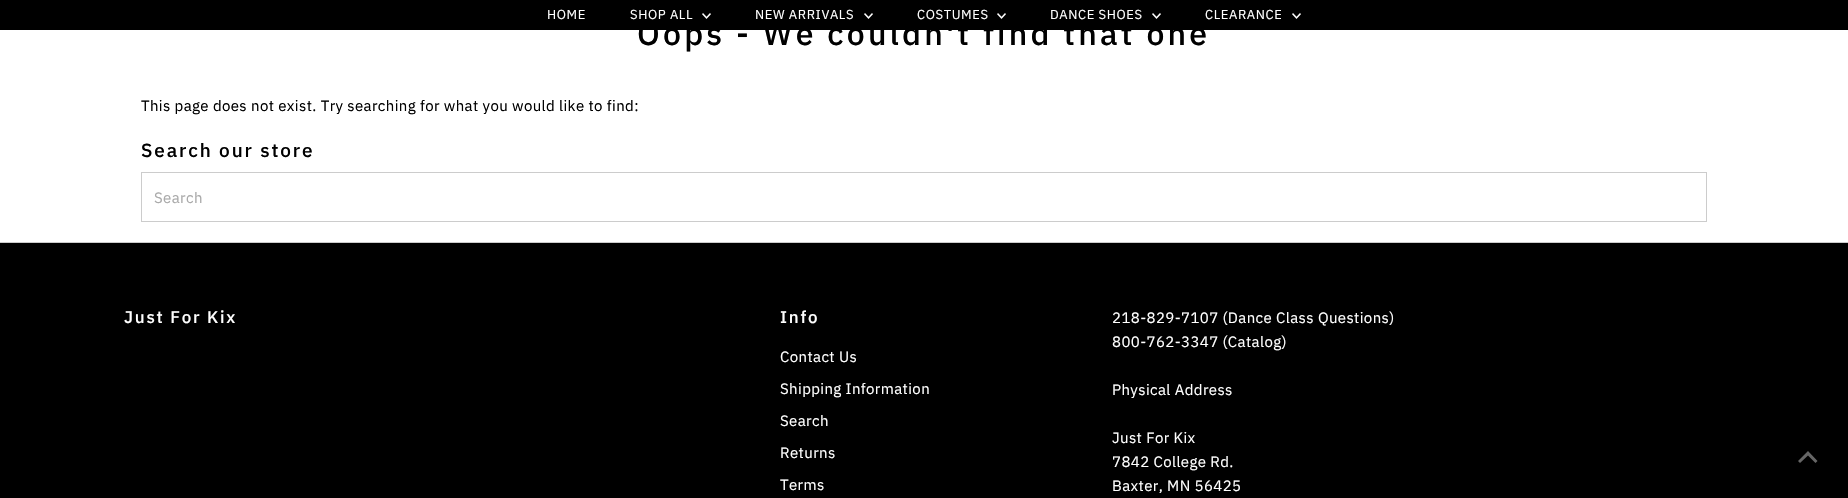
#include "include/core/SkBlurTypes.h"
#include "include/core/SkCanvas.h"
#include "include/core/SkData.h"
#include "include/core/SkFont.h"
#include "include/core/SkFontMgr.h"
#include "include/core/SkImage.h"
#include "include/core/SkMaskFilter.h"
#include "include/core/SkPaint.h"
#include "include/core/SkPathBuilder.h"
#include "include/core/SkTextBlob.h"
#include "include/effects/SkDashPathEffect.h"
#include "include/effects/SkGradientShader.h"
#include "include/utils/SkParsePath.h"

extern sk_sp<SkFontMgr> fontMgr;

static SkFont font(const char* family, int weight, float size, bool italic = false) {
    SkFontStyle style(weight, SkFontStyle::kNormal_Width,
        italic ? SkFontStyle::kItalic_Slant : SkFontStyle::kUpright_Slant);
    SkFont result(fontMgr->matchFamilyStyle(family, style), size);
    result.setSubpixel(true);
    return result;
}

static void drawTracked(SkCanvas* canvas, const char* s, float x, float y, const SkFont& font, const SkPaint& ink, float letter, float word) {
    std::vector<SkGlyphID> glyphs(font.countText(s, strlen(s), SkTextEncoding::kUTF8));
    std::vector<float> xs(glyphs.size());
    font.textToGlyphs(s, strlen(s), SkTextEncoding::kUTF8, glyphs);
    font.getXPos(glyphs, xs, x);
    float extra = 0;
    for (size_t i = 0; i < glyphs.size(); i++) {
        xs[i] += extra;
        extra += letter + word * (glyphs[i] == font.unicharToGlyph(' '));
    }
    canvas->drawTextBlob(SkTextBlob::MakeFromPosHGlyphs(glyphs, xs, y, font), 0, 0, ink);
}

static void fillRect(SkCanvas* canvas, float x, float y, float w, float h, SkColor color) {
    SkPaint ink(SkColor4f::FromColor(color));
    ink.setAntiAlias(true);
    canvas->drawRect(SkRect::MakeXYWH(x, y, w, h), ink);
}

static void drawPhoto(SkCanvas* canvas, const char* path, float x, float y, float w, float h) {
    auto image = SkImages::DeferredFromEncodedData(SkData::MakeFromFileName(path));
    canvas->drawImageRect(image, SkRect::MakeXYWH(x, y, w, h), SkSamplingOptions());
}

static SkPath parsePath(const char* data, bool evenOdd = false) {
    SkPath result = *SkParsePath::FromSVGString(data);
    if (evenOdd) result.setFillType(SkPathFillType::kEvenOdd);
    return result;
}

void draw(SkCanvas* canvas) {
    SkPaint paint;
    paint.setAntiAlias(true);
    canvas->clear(0xFFFFFFFF);
    fillRect(canvas, 0, 0, 1848, 30, 0xFF000000);
    SkFont font1 = font("IBM Plex Sans", 400, 13);
    paint.setColor(0xFFFFFFFF);
    drawTracked(canvas, "HOME", 547, 19, font1, paint, 0.6f, 0);
    drawTracked(canvas, "SHOP ALL", 630, 19, font1, paint, 0.6f, 0);
    drawPhoto(canvas, "assets/img1.png", 702, 13, 9, 6);
    drawTracked(canvas, "NEW ARRIVALS", 755, 19, font1, paint, 0.6f, 0);
    drawPhoto(canvas, "assets/img1.png", 864, 13, 9, 6);
    drawTracked(canvas, "COSTUMES", 917, 19, font1, paint, 0.6f, 0);
    drawPhoto(canvas, "assets/img1.png", 997, 13, 9, 6);
    drawTracked(canvas, "DANCE SHOES", 1050, 19, font1, paint, 0.6f, 0);
    drawPhoto(canvas, "assets/img1.png", 1152, 13, 9, 6);
    drawTracked(canvas, "CLEARANCE", 1205, 19, font1, paint, 0.6f, 0);
    drawPhoto(canvas, "assets/img1.png", 1292, 13, 9, 6);
    SkFont font2 = font("IBM Plex Sans", 500, 32);
    paint.setColor(0xFF000000);
    drawTracked(canvas, "Oops - We couldn't find that one", 637, 45, font2, paint, 3.2f, 0);
    SkFont font3 = font("IBM Plex Sans", 400, 15);
    drawTracked(canvas, "This page does not exist. Try searching for what you would like to find:", 141, 111, font3, paint, 0.38f, 0);
    SkFont font4 = font("IBM Plex Sans", 500, 19);
    drawTracked(canvas, "Search our store", 141, 157, font4, paint, 1.9f, 0);
    paint.setStroke(true);
    paint.setStrokeWidth(1);
    paint.setColor(0xFFCCCCCC);
    canvas->drawRect(SkRect::MakeXYWH(141.5f, 172.5f, 1565, 49), paint);
    paint.setStroke(false);
    paint.setColor(0xFFAAAAAA);
    drawTracked(canvas, "Search", 154, 203, font3, paint, 0.38f, 0);
    fillRect(canvas, 0, 243, 1848, 255, 0xFF000000);
    fillRect(canvas, 0, 242, 1848, 1, 0xFFCCCCCC);
    SkFont font5 = font("IBM Plex Sans", 500, 17);
    paint.setColor(0xFFFFFFFF);
    drawTracked(canvas, "Just For Kix", 124, 323, font5, paint, 1.75f, 0);
    drawTracked(canvas, "Info", 780, 323, font5, paint, 1.75f, 0);
    drawTracked(canvas, "Contact Us", 780, 362, font3, paint, 0.38f, 0);
    drawTracked(canvas, "Shipping Information", 780, 394, font3, paint, 0.38f, 0);
    drawTracked(canvas, "Search", 780, 426, font3, paint, 0.38f, 0);
    drawTracked(canvas, "Returns", 780, 458, font3, paint, 0.38f, 0);
    drawTracked(canvas, "Terms", 780, 490, font3, paint, 0.38f, 0);
    drawTracked(canvas, "218-829-7107 (Dance Class Questions)", 1112, 323, font3, paint, 0.38f, 0);
    drawTracked(canvas, "800-762-3347 (Catalog)", 1112, 347, font3, paint, 0.38f, 0);
    drawTracked(canvas, "Physical Address", 1112, 395, font3, paint, 0.38f, 0);
    drawTracked(canvas, "Just For Kix", 1112, 443, font3, paint, 0.38f, 0);
    drawTracked(canvas, "7842 College Rd.", 1112, 467, font3, paint, 0.38f, 0);
    drawTracked(canvas, "Baxter, MN 56425", 1112, 491, font3, paint, 0.38f, 0);
    paint.setColor(0xFF666666);
    canvas->drawPath(parsePath("M1808 451L1798 461L1800 463L1808 455.5L1815.5 463L1817.5 461Z"), paint);
}
